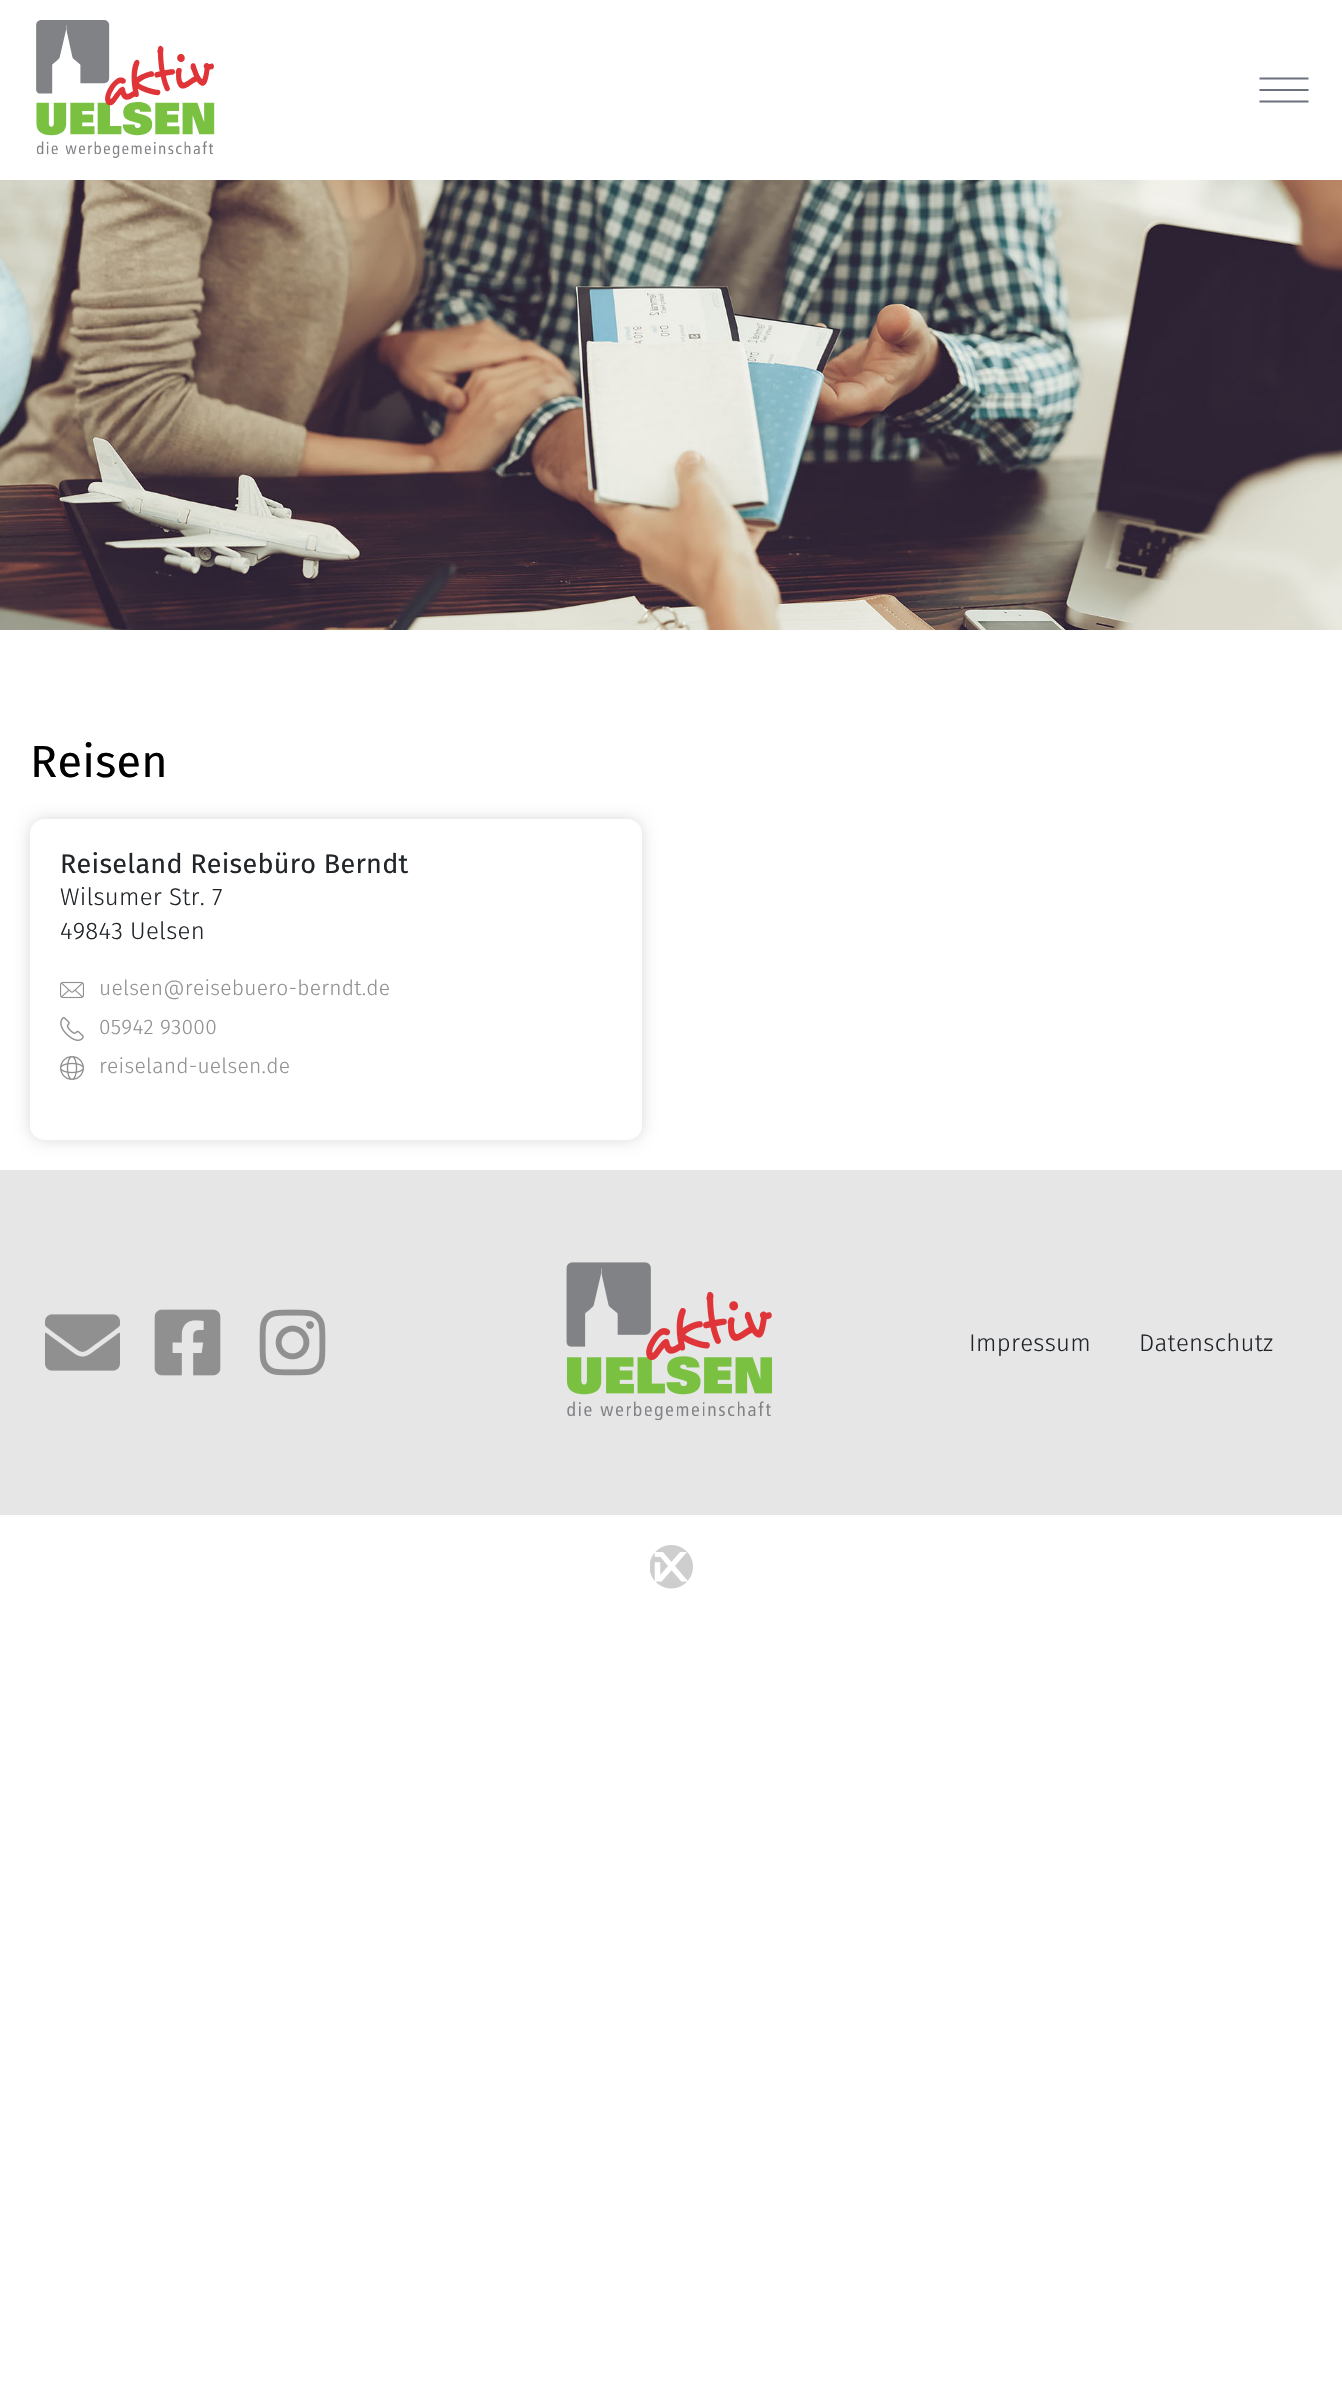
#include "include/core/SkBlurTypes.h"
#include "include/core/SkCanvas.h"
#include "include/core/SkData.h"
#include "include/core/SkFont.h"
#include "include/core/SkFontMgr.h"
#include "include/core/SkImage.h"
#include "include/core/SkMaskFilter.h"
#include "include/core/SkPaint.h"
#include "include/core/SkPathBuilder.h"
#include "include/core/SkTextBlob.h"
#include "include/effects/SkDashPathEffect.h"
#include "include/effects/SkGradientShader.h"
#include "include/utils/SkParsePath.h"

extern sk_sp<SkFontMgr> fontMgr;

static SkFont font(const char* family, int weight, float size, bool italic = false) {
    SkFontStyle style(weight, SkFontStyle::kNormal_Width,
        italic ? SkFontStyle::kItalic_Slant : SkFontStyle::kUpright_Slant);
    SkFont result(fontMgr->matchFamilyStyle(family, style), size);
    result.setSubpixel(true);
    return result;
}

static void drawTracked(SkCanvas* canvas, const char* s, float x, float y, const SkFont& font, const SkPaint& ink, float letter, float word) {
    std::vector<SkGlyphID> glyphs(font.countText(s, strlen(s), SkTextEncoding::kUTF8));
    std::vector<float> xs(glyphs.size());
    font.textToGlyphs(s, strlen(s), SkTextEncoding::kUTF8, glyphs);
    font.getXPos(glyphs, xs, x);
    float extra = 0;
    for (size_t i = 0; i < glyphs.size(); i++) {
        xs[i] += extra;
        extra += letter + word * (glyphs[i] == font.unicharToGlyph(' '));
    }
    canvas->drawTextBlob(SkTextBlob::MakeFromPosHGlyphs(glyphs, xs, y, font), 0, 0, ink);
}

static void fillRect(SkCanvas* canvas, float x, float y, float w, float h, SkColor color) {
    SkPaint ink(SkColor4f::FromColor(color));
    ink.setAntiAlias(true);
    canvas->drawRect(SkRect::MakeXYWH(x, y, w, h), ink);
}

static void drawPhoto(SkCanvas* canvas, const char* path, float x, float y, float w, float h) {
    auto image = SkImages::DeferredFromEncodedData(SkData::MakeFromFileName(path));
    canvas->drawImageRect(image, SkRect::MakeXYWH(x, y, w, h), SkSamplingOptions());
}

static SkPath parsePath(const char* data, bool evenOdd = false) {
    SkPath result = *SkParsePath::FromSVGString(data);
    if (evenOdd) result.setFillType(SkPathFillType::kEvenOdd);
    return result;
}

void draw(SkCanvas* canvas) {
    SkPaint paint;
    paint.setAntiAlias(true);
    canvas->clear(0xFFFFFFFF);
    drawPhoto(canvas, "assets/img1.png", 36, 20, 179, 138);
    paint.setStroke(true);
    paint.setStrokeWidth(1.9f);
    paint.setColor(0xFF69727D);
    canvas->drawPath(parsePath("M1259.5 78.5H1308.5M1259.5 90H1308.5M1259.5 101.5H1308.5"), paint);
    drawPhoto(canvas, "assets/img2.png", 0, 180, 1342, 450);
    SkFont font1 = font("Fira Sans", 400, 45);
    paint.setStroke(false);
    paint.setColor(0xFF000000);
    drawTracked(canvas, "Reisen", 30, 777, font1, paint, 0.25f, 0);
    canvas->save();
    canvas->clipPath(parsePath("M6 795H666V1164H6ZM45 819H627C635.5 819 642 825.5 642 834V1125C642 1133.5 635.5 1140 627 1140H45C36.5 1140 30 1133.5 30 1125V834C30 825.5 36.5 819 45 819Z", true), true);
    paint.setColor(0x26000000);
    paint.setMaskFilter(SkMaskFilter::MakeBlur(kNormal_SkBlurStyle, 7.5f));
    canvas->drawRoundRect(SkRect::MakeXYWH(30, 819, 612, 321), 15, 15, paint);
    paint.setMaskFilter(nullptr);
    canvas->restore();
    SkFont font2 = font("Fira Sans", 400, 27);
    paint.setColor(0xFF212529);
    drawTracked(canvas, "Reiseland Reisebüro Berndt", 60, 873, font2, paint, 0.25f, 0);
    SkFont font3 = font("Fira Sans", 300, 24);
    drawTracked(canvas, "Wilsumer Str. 7", 60, 905, font3, paint, 0.25f, 0);
    drawTracked(canvas, "49843 Uelsen", 60, 939, font3, paint, 0.25f, 0);
    drawPhoto(canvas, "assets/img3.png", 60, 981, 24, 18);
    SkFont font4 = font("Fira Sans", 300, 21);
    paint.setColor(0xFF909090);
    drawTracked(canvas, "uelsen@reisebuero-berndt.de", 99, 995, font4, paint, 0.25f, 0);
    drawPhoto(canvas, "assets/img4.png", 60, 1017, 24, 24);
    drawTracked(canvas, "05942 93000", 99, 1034, font4, paint, 0.25f, 0);
    drawPhoto(canvas, "assets/img5.png", 60, 1056, 24, 24);
    drawTracked(canvas, "reiseland-uelsen.de", 99, 1073, font4, paint, 0.25f, 0);
    fillRect(canvas, 0, 1170, 1342, 345, 0xFFE6E6E6);
    drawPhoto(canvas, "assets/img6.png", 45, 1314, 75, 57);
    drawPhoto(canvas, "assets/img7.png", 154, 1309, 67, 67);
    drawPhoto(canvas, "assets/img8.png", 259, 1309, 67, 67);
    drawPhoto(canvas, "assets/img9.png", 566, 1262, 206, 158);
    paint.setColor(0xFF212529);
    drawTracked(canvas, "Impressum", 969, 1351, font3, paint, 0.25f, 0);
    drawTracked(canvas, "Datenschutz", 1139, 1351, font3, paint, 0.25f, 0);
    drawPhoto(canvas, "assets/img10.png", 650, 1545, 43, 44);
}
